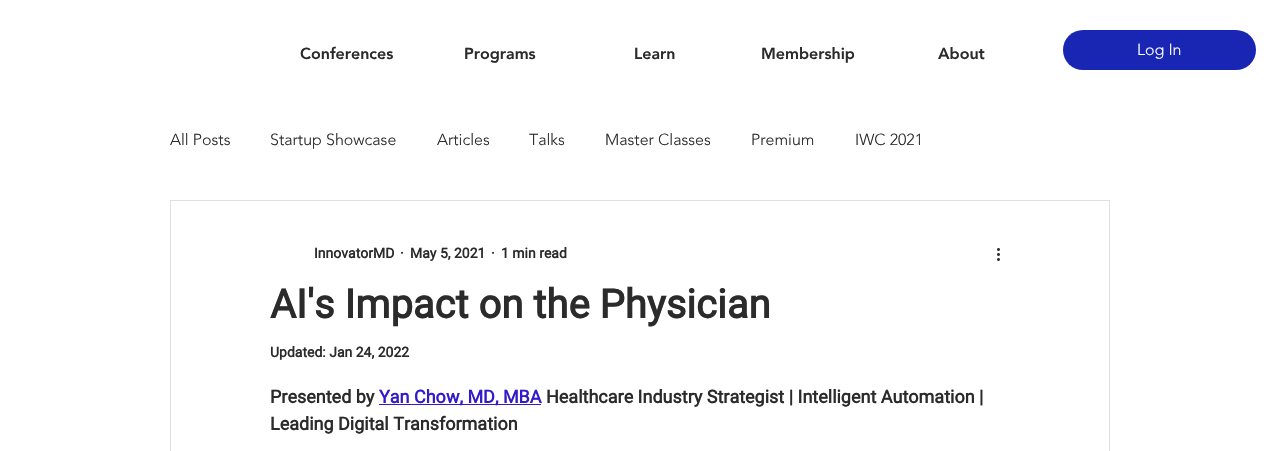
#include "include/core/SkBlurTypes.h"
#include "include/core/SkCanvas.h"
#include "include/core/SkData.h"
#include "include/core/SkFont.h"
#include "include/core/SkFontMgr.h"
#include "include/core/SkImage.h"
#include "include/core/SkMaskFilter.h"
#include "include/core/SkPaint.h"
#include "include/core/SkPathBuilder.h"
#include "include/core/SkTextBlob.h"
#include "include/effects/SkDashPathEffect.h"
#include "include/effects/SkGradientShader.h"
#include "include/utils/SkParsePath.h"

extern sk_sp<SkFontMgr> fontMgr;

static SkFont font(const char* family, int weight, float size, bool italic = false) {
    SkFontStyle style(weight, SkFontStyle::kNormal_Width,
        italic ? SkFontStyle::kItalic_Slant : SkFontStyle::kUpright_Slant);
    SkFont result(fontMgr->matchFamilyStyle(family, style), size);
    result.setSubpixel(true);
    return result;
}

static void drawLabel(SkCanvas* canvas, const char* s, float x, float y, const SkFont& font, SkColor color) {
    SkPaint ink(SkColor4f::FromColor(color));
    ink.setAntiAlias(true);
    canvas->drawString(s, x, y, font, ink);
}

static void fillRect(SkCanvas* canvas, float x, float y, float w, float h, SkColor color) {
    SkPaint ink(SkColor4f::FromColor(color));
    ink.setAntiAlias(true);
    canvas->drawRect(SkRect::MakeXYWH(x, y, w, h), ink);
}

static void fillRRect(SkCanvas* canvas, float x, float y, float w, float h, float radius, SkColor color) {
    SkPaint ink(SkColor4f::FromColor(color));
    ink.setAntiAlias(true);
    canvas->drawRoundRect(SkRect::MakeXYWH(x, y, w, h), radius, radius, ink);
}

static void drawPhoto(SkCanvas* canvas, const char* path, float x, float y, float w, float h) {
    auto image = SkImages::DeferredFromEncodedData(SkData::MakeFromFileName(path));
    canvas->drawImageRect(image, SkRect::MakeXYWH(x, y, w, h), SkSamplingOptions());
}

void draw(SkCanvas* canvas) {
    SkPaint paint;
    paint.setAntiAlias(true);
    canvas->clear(0xFFFFFFFF);
    SkFont font1 = font("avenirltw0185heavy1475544", 900, 16);
    drawLabel(canvas, "Conferences", 300, 59, font1, 0xFF2B2B2B);
    drawLabel(canvas, "Programs", 464, 59, font1, 0xFF2B2B2B);
    drawLabel(canvas, "Learn", 634, 59, font1, 0xFF2B2B2B);
    drawLabel(canvas, "Membership", 761, 59, font1, 0xFF2B2B2B);
    drawLabel(canvas, "About", 938, 59, font1, 0xFF2B2B2B);
    fillRRect(canvas, 1063, 30, 193, 40, 20, 0xFF1926B3);
    SkFont font2 = font("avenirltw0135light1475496", 300, 16);
    drawLabel(canvas, "Log In", 1137, 55, font2, 0xFFFFFFFF);
    drawLabel(canvas, "All Posts", 170, 145, font2, 0xFF2B2B2B);
    drawLabel(canvas, "Startup Showcase", 270, 145, font2, 0xFF2B2B2B);
    drawLabel(canvas, "Articles", 437, 145, font2, 0xFF2B2B2B);
    drawLabel(canvas, "Talks", 529, 145, font2, 0xFF2B2B2B);
    drawLabel(canvas, "Master Classes", 605, 145, font2, 0xFF2B2B2B);
    drawLabel(canvas, "Premium", 751, 145, font2, 0xFF2B2B2B);
    drawLabel(canvas, "IWC 2021", 855, 145, font2, 0xFF2B2B2B);
    paint.setStroke(true);
    paint.setStrokeWidth(1);
    paint.setColor(0xFFE0E0E0);
    canvas->drawRect(SkRect::MakeXYWH(170.5f, 200.5f, 939, 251), paint);
    SkFont font3 = font("Roboto", 700, 14);
    drawLabel(canvas, "InnovatorMD", 314, 258, font3, 0xFF2B2B2B);
    drawLabel(canvas, "·", 400, 258, font3, 0xFF2B2B2B);
    drawLabel(canvas, "May 5, 2021", 410, 258, font3, 0xFF2B2B2B);
    drawLabel(canvas, "·", 491, 258, font3, 0xFF2B2B2B);
    drawLabel(canvas, "1 min read", 501, 258, font3, 0xFF2B2B2B);
    drawPhoto(canvas, "assets/img1.png", 997, 248, 3, 13);
    SkFont font4 = font("Roboto", 700, 40);
    drawLabel(canvas, "AI's Impact on the Physician", 270, 318, font4, 0xFF2B2B2B);
    drawLabel(canvas, "Updated: Jan 24, 2022", 270, 357, font3, 0xFF2B2B2B);
    SkFont font5 = font("Roboto", 700, 18);
    drawLabel(canvas, "Presented by", 270, 403, font5, 0xFF2B2B2B);
    fillRect(canvas, 379, 404, 162, 1, 0xFF341BCA);
    drawLabel(canvas, "Yan Chow, MD, MBA", 379, 403, font5, 0xFF341BCA);
    drawLabel(canvas, "Healthcare Industry Strategist | Intelligent Automation |", 546, 403, font5, 0xFF2B2B2B);
    drawLabel(canvas, "Leading Digital Transformation", 270, 430, font5, 0xFF2B2B2B);
}
